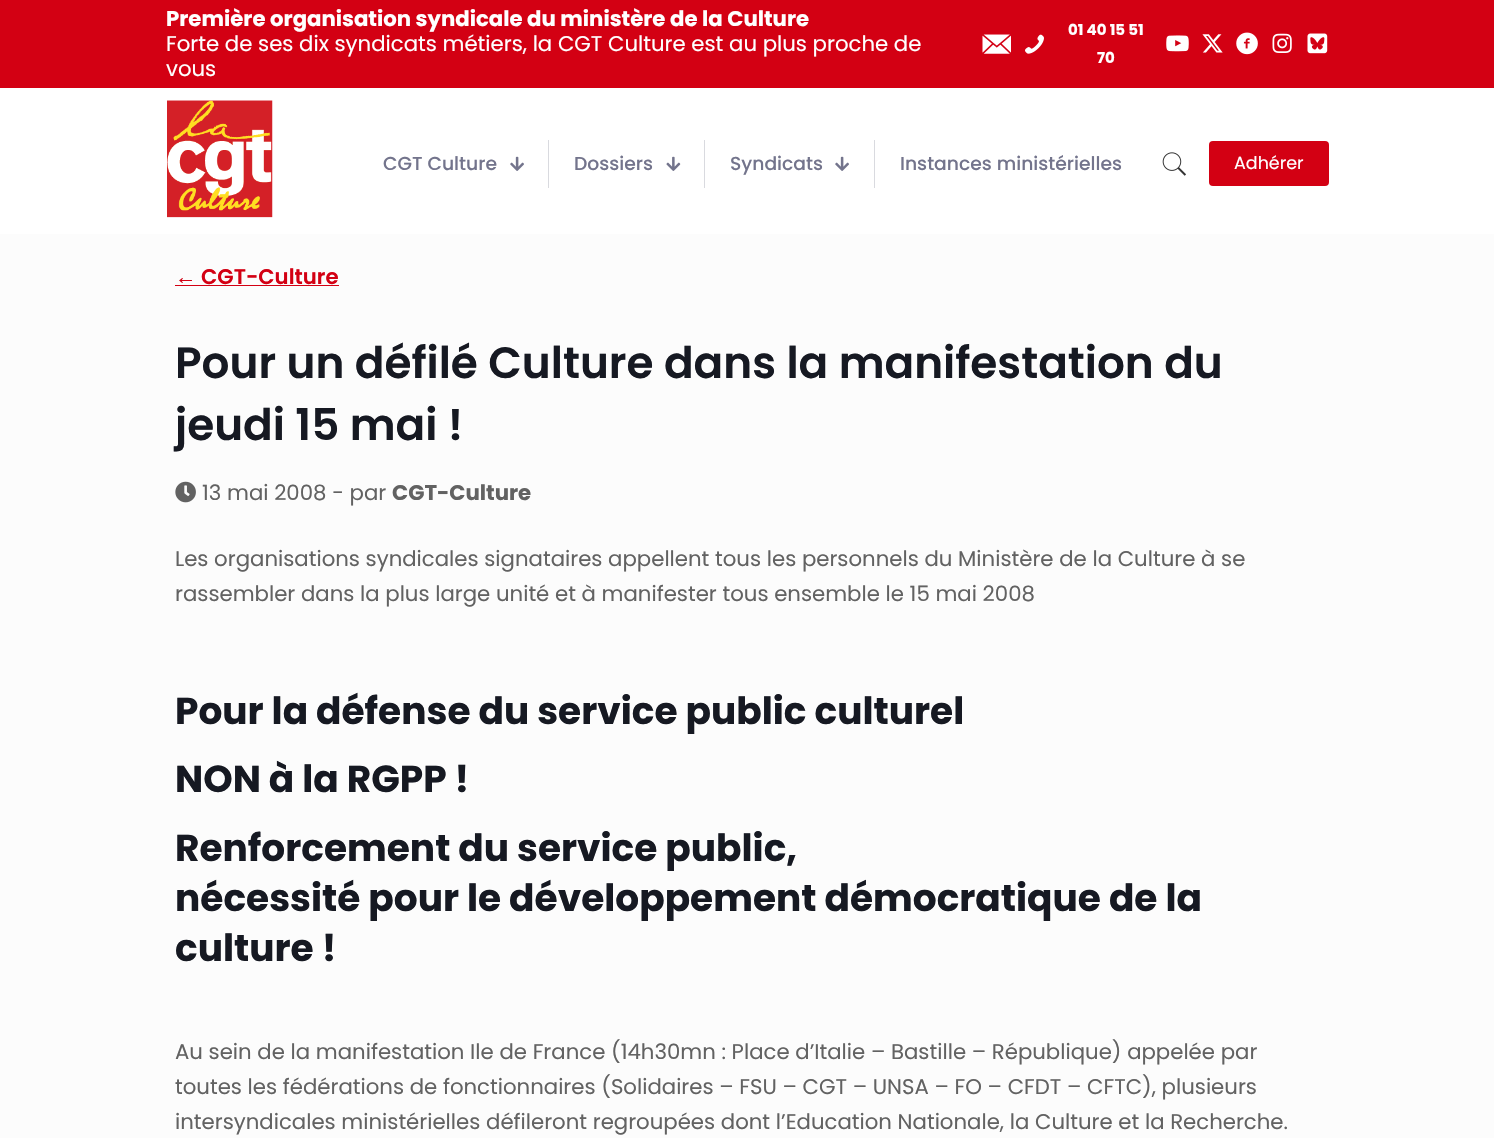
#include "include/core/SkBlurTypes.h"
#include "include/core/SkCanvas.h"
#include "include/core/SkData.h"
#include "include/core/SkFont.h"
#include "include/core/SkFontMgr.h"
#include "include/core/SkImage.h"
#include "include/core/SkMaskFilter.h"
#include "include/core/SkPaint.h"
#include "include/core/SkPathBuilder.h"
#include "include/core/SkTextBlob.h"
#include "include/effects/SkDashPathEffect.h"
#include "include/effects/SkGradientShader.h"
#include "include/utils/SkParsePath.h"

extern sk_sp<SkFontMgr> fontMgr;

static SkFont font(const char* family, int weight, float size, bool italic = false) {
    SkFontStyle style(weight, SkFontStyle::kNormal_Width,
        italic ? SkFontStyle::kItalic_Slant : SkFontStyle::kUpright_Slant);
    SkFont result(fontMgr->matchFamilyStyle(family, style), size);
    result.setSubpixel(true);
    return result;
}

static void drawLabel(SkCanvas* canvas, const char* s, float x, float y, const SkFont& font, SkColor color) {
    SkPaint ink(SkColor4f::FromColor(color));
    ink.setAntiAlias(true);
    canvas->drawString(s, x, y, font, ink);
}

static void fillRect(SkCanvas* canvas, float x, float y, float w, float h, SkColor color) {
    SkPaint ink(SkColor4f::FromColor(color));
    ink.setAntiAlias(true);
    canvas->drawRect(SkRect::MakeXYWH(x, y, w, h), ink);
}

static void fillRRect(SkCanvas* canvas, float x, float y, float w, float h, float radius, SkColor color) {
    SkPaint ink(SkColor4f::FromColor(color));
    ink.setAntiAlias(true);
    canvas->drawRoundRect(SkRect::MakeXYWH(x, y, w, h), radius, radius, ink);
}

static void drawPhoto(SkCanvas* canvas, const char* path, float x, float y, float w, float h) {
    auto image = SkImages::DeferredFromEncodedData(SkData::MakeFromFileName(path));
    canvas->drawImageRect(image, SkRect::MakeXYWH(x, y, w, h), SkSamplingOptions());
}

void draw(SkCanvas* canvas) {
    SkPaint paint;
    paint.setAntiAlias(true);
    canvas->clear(0xFFFCFCFC);
    fillRect(canvas, 0, 0, 1494, 88, 0xFFD30013);
    SkFont font1 = font("Poppins", 700, 21.25f);
    drawLabel(canvas, "Première organisation syndicale du ministère de la Culture", 166, 26, font1, 0xFFFFFFFF);
    SkFont font2 = font("Poppins", 400, 21.25f);
    drawLabel(canvas, "Forte de ses dix syndicats métiers, la CGT Culture est au plus proche de", 166, 51, font2, 0xFFFFFFFF);
    drawLabel(canvas, "vous", 166, 76, font2, 0xFFFFFFFF);
    drawPhoto(canvas, "assets/img1.png", 982, 34, 29, 20);
    drawPhoto(canvas, "assets/img2.png", 1025, 34, 19, 20);
    SkFont font3 = font("Poppins", 700, 15);
    drawLabel(canvas, "01 40 15 51", 1068, 35, font3, 0xFFFFFFFF);
    drawLabel(canvas, "70", 1097, 63, font3, 0xFFFFFFFF);
    drawPhoto(canvas, "assets/img3.png", 1166, 35, 23, 17);
    drawPhoto(canvas, "assets/img4.png", 1202, 34, 21, 19);
    drawPhoto(canvas, "assets/img5.png", 1236, 32, 22, 23);
    drawPhoto(canvas, "assets/img6.png", 1272, 33, 20, 20);
    drawPhoto(canvas, "assets/img7.png", 1307, 33, 21, 21);
    fillRect(canvas, 0, 88, 1494, 146, 0xFFFFFFFF);
    drawPhoto(canvas, "assets/img8.png", 167, 100, 106, 118);
    SkFont font4 = font("Poppins", 500, 18.75f);
    drawLabel(canvas, "CGT Culture", 383, 170, font4, 0xFF73748C);
    drawPhoto(canvas, "assets/img9.png", 510, 156, 14, 15);
    fillRect(canvas, 548, 140, 1, 48, 0xFFD9DADF);
    drawLabel(canvas, "Dossiers", 574, 170, font4, 0xFF73748C);
    drawPhoto(canvas, "assets/img10.png", 666, 156, 15, 15);
    fillRect(canvas, 704, 140, 1, 48, 0xFFD9DADF);
    drawLabel(canvas, "Syndicats", 730, 170, font4, 0xFF73748C);
    drawPhoto(canvas, "assets/img9.png", 835, 156, 14, 15);
    fillRect(canvas, 874, 140, 1, 48, 0xFFD9DADF);
    drawLabel(canvas, "Instances ministérielles", 900, 170, font4, 0xFF73748C);
    drawPhoto(canvas, "assets/img11.png", 1162, 152, 24, 24);
    fillRRect(canvas, 1209, 141, 120, 45, 4, 0xFFD30013);
    SkFont font5 = font("Poppins", 400, 17.5f);
    drawLabel(canvas, "Adhérer", 1234, 169, font5, 0xFFFFFFFF);
    SkFont font6 = font("Liberation Serif", 700, 21.25f);
    drawLabel(canvas, "←", 175, 284, font6, 0xFFD30013);
    fillRect(canvas, 175, 285, 164, 1, 0xFFD30013);
    SkFont font7 = font("Poppins", 600, 21.25f);
    drawLabel(canvas, "CGT-Culture", 201, 284, font7, 0xFFD30013);
    SkFont font8 = font("Poppins", 600, 43.75f);
    drawLabel(canvas, "Pour un défilé Culture dans la manifestation du", 175, 378, font8, 0xFF161922);
    drawLabel(canvas, "jeudi 15 mai !", 175, 440, font8, 0xFF161922);
    drawPhoto(canvas, "assets/img12.png", 175, 481, 21, 22);
    drawLabel(canvas, "13 mai 2008 - par", 202, 500, font2, 0xFF626262);
    drawLabel(canvas, "CGT-Culture", 392, 500, font1, 0xFF626262);
    drawLabel(canvas, "Les organisations syndicales signataires appellent tous les personnels du Ministère de la Culture à se", 175, 566, font2, 0xFF626262);
    drawLabel(canvas, "rassembler dans la plus large unité et à manifester tous ensemble le 15 mai 2008", 175, 601, font2, 0xFF626262);
    SkFont font9 = font("Poppins", 700, 37.5f);
    drawLabel(canvas, "Pour la défense du service public culturel", 175, 724, font9, 0xFF161922);
    drawLabel(canvas, "NON à la RGPP !", 175, 792, font9, 0xFF161922);
    drawLabel(canvas, "Renforcement du service public,", 175, 861, font9, 0xFF161922);
    drawLabel(canvas, "nécessité pour le développement démocratique de la", 175, 911, font9, 0xFF161922);
    drawLabel(canvas, "culture !", 175, 961, font9, 0xFF161922);
    drawLabel(canvas, "Au sein de la manifestation Ile de France (14h30mn : Place d’Italie – Bastille – République) appelée par", 175, 1059, font2, 0xFF626262);
    drawLabel(canvas, "toutes les fédérations de fonctionnaires (Solidaires – FSU – CGT – UNSA – FO – CFDT – CFTC), plusieurs", 175, 1094, font2, 0xFF626262);
    drawLabel(canvas, "intersyndicales ministérielles défileront regroupées dont l’Education Nationale, la Culture et la Recherche.", 175, 1129, font2, 0xFF626262);
}
